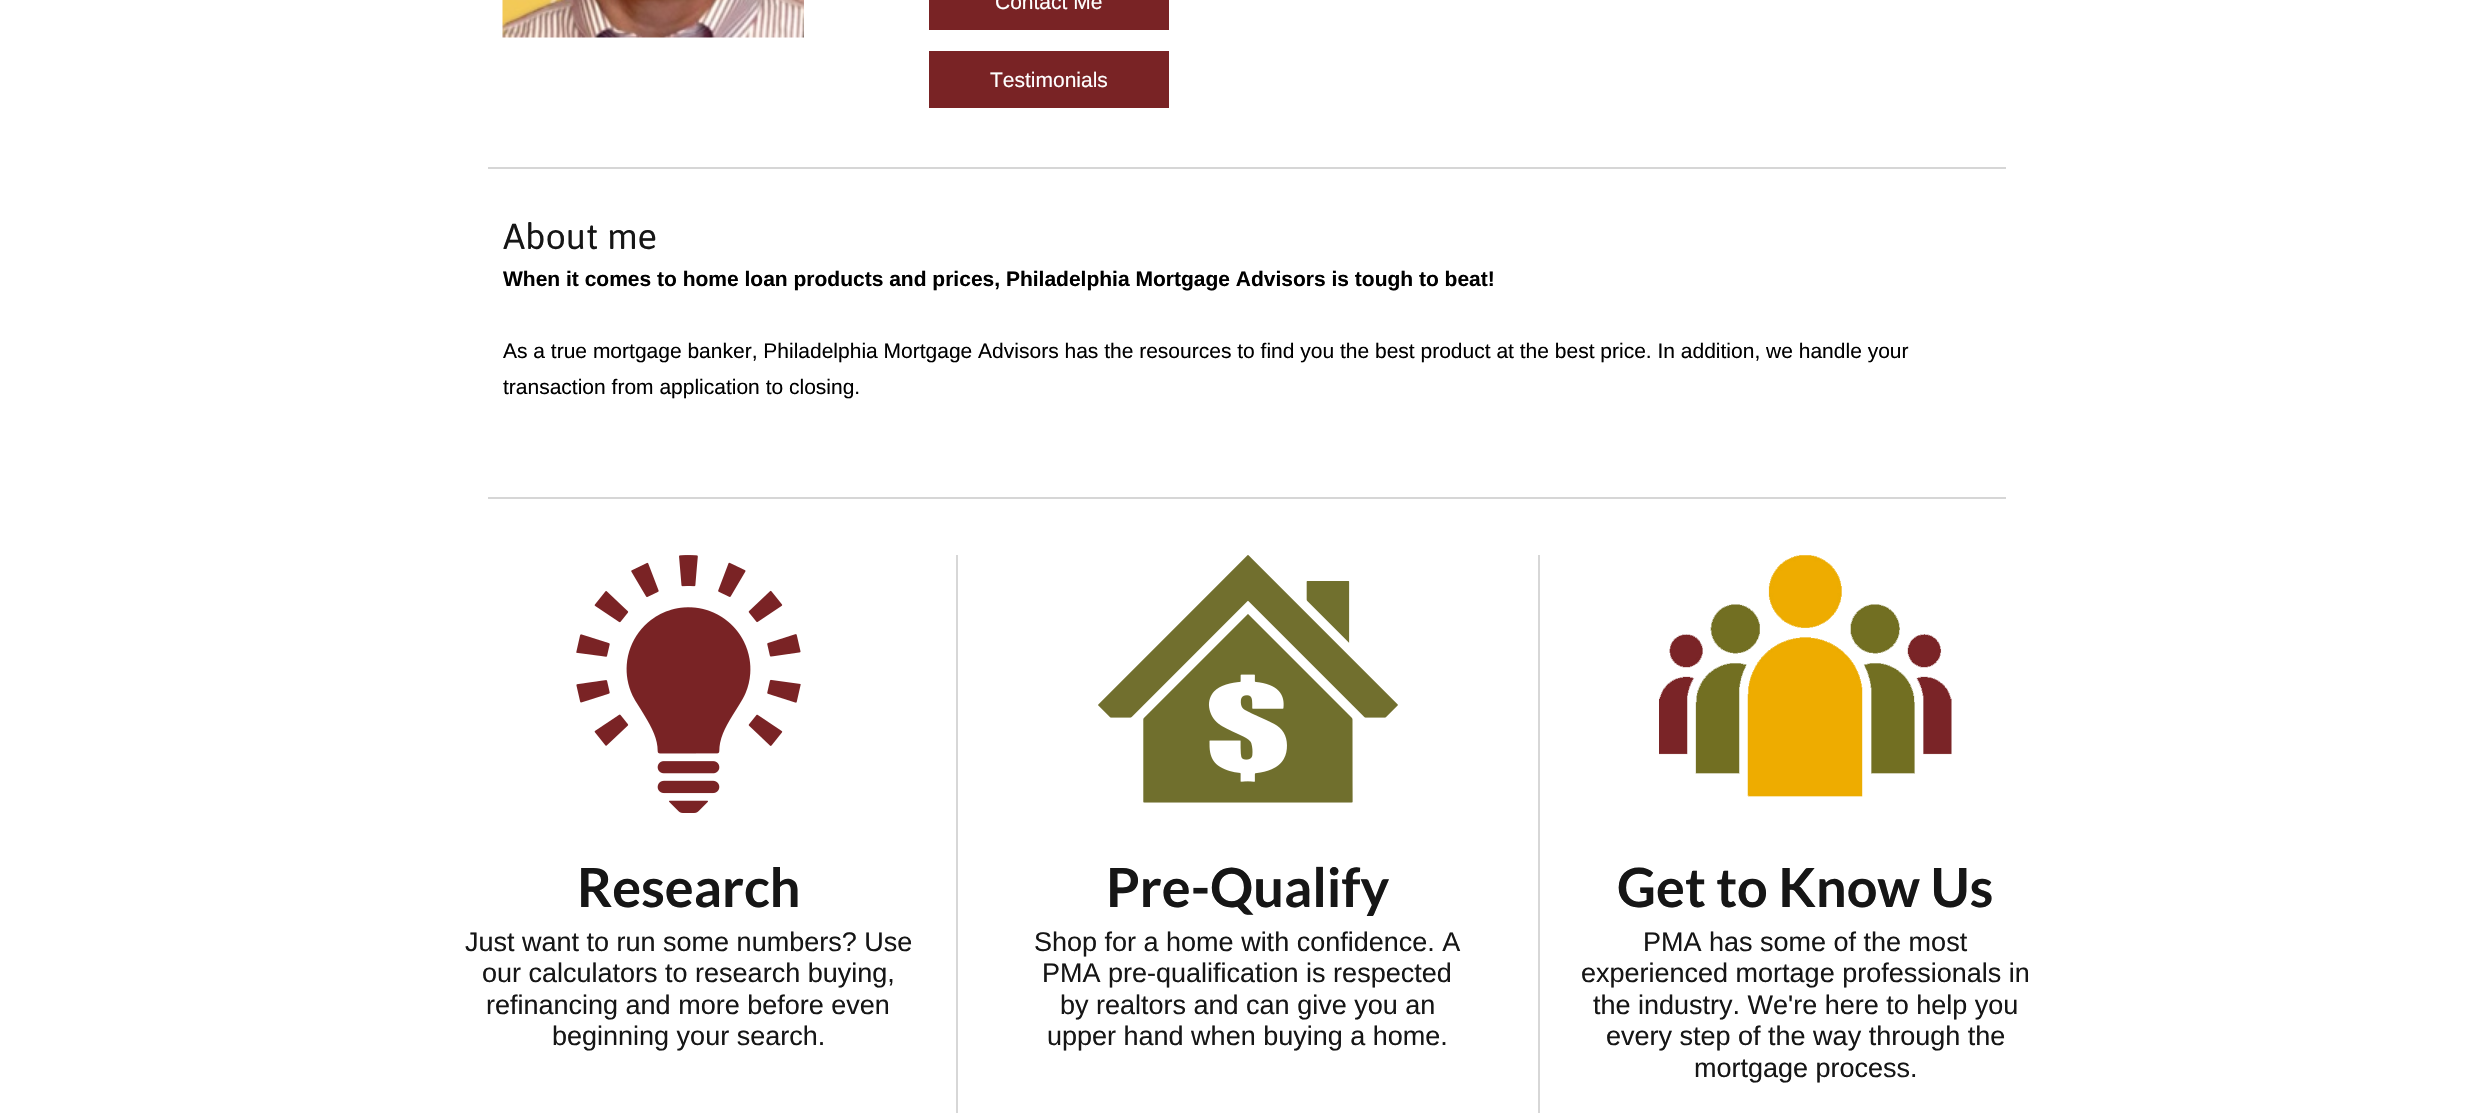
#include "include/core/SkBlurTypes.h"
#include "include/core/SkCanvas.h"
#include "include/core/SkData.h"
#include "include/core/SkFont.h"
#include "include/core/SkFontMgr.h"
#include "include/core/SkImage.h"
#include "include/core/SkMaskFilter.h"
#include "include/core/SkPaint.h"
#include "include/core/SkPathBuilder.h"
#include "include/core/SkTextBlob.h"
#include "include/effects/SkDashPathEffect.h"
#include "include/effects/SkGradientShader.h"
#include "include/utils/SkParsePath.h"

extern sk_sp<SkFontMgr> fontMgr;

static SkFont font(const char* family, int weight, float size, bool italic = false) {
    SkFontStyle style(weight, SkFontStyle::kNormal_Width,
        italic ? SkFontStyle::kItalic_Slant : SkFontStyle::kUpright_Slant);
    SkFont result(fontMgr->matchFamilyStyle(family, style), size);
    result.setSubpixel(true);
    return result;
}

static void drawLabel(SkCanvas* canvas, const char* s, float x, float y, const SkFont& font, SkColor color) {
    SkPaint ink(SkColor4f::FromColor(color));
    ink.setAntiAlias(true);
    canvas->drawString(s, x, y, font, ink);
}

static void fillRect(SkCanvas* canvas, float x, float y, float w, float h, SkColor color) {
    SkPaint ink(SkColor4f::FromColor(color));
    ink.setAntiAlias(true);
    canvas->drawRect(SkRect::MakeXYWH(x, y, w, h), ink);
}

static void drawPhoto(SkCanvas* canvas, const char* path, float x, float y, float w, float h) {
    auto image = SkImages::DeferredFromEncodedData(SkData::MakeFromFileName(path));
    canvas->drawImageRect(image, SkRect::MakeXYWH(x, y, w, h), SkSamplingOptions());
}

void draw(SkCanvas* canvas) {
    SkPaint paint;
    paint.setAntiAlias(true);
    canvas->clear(0xFFFFFFFF);
    drawPhoto(canvas, "assets/img1.png", 502, 0, 302, 38);
    fillRect(canvas, 929, 0, 240, 30, 0xFF792325);
    SkFont font1 = font("Liberation Sans", 400, 21);
    drawLabel(canvas, "Contact Me", 995, 9, font1, 0xFFFFFFFF);
    fillRect(canvas, 929, 51, 240, 57, 0xFF792325);
    drawLabel(canvas, "Testimonials", 990, 87, font1, 0xFFFFFFFF);
    fillRect(canvas, 488, 167, 1518, 2, 0xFFD6D6D6);
    fillRect(canvas, 488, 497, 1518, 2, 0xFFD6D6D6);
    SkFont font2 = font("Asap", 400, 36);
    drawLabel(canvas, "About me", 503, 249, font2, 0xFF161616);
    SkFont font3 = font("Liberation Sans", 700, 21);
    drawLabel(canvas, "When it comes to home loan products and prices, Philadelphia Mortgage Advisors is tough to beat!", 503, 286, font3, 0xFF000000);
    drawLabel(canvas, "As a true mortgage banker, Philadelphia Mortgage Advisors has the resources to find you the best product at the best price. In addition, we handle your", 503, 358, font1, 0xFF000000);
    drawLabel(canvas, "transaction from application to closing.", 503, 394, font1, 0xFF000000);
    drawPhoto(canvas, "assets/img2.png", 576, 555, 225, 258);
    SkFont font4 = font("Lato", 700, 54);
    drawLabel(canvas, "Research", 577, 907, font4, 0xFF161616);
    SkFont font5 = font("Liberation Sans", 400, 27);
    drawLabel(canvas, "Just want to run some numbers? Use", 465, 951, font5, 0xFF161616);
    drawLabel(canvas, "our calculators to research buying,", 482, 982, font5, 0xFF161616);
    drawLabel(canvas, "refinancing and more before even", 486, 1014, font5, 0xFF161616);
    drawLabel(canvas, "beginning your search.", 552, 1045, font5, 0xFF161616);
    fillRect(canvas, 956, 555, 2, 558, 0xFFD7D7D7);
    drawPhoto(canvas, "assets/img3.png", 1098, 555, 300, 248);
    drawLabel(canvas, "Pre-Qualify", 1106, 907, font4, 0xFF161616);
    drawLabel(canvas, "Shop for a home with confidence. A", 1034, 951, font5, 0xFF161616);
    drawLabel(canvas, "PMA pre-qualification is respected", 1042, 982, font5, 0xFF161616);
    drawLabel(canvas, "by realtors and can give you an", 1060, 1014, font5, 0xFF161616);
    drawLabel(canvas, "upper hand when buying a home.", 1047, 1045, font5, 0xFF161616);
    fillRect(canvas, 1538, 555, 2, 558, 0xFFD7D7D7);
    drawPhoto(canvas, "assets/img4.png", 1659, 555, 293, 242);
    drawLabel(canvas, "Get to Know Us", 1617, 907, font4, 0xFF161616);
    drawLabel(canvas, "PMA has some of the most", 1643, 951, font5, 0xFF161616);
    drawLabel(canvas, "experienced mortage professionals in", 1581, 982, font5, 0xFF161616);
    drawLabel(canvas, "the industry. We're here to help you", 1593, 1014, font5, 0xFF161616);
    drawLabel(canvas, "every step of the way through the", 1606, 1045, font5, 0xFF161616);
    drawLabel(canvas, "mortgage process.", 1694, 1077, font5, 0xFF161616);
}
